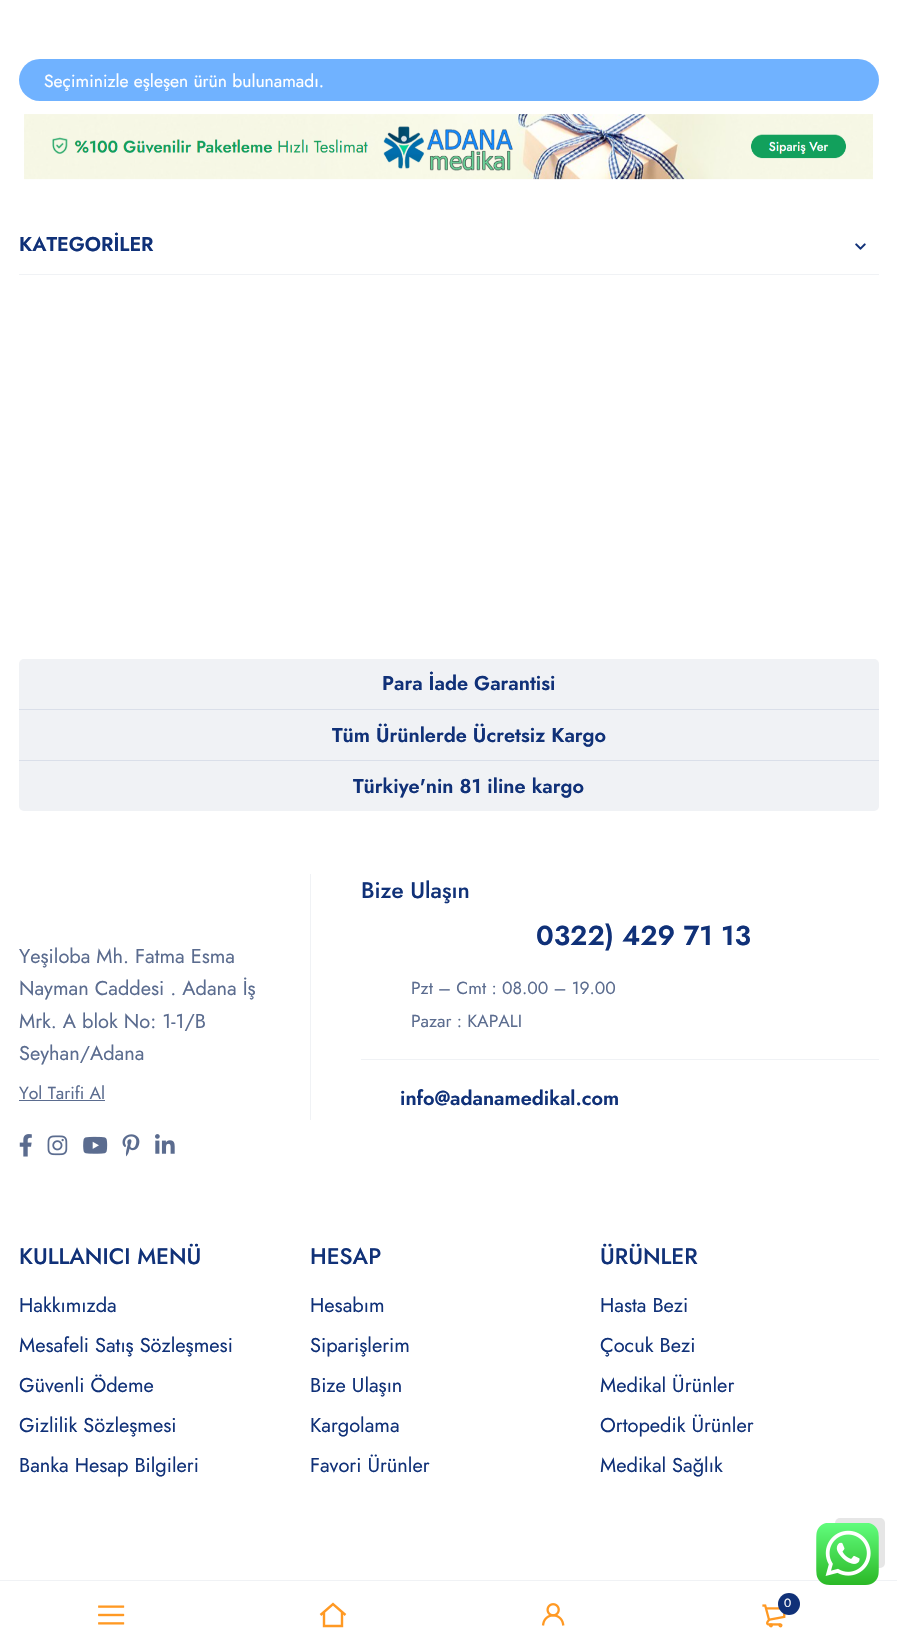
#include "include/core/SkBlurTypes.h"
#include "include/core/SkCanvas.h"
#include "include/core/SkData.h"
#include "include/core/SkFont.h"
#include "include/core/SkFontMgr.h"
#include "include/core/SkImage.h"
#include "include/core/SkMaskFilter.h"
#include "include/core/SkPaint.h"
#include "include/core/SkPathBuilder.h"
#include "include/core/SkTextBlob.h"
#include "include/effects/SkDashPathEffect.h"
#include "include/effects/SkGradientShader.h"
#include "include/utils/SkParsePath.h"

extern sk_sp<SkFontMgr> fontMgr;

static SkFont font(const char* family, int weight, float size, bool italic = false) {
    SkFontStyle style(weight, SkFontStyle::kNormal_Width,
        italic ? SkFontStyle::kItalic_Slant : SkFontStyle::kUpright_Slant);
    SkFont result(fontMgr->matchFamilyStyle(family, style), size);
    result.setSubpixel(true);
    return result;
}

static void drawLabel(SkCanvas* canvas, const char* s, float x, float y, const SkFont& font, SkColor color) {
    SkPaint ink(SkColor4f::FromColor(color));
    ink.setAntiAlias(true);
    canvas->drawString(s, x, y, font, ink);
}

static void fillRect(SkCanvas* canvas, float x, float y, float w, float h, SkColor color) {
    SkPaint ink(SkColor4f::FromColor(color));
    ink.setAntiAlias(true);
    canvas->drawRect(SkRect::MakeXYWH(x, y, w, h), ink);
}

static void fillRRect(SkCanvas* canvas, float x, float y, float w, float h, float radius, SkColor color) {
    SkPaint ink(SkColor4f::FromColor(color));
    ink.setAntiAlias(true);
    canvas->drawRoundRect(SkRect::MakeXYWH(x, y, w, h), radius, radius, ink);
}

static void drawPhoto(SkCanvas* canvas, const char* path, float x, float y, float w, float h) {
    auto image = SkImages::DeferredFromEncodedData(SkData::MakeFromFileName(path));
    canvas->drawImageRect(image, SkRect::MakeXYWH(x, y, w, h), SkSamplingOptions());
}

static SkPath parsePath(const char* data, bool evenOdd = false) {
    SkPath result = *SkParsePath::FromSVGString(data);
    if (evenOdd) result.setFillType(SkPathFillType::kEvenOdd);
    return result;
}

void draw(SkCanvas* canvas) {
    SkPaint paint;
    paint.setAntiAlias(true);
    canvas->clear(0xFFFFFFFF);
    fillRRect(canvas, 19, 59, 860, 42, 21, 0xFF70B2FF);
    SkFont font1 = font("Jost", 400, 17.5f);
    drawLabel(canvas, "Seçiminizle eşleşen ürün bulunamadı.", 44, 87, font1, 0xFFFFFFFF);
    drawPhoto(canvas, "assets/img1.png", 24, 114, 849, 66);
    fillRect(canvas, 19, 274, 860, 1, 0xFFF0F2F5);
    SkFont font2 = font("Jost", 600, 20);
    drawLabel(canvas, "KATEGORİLER", 19, 251, font2, 0xFF103178);
    drawPhoto(canvas, "assets/img2.png", 855, 243, 11, 7);
    fillRRect(canvas, 19, 659, 860, 152, 5, 0xFFF0F2F5);
    fillRect(canvas, 19, 709, 860, 1, 0xFFDADFE9);
    drawLabel(canvas, "Para İade Garantisi", 382, 690, font2, 0xFF103178);
    fillRect(canvas, 19, 760, 860, 1, 0xFFDADFE9);
    drawLabel(canvas, "Tüm Ürünlerde Ücretsiz Kargo", 332, 742, font2, 0xFF103178);
    drawLabel(canvas, "Türkiye'nin 81 iline kargo", 353, 793, font2, 0xFF103178);
    SkFont font3 = font("Jost", 400, 20);
    drawLabel(canvas, "Yeşiloba Mh. Fatma Esma", 19, 963, font3, 0xFF5B6C8F);
    drawLabel(canvas, "Nayman Caddesi . Adana İş", 19, 995, font3, 0xFF5B6C8F);
    drawLabel(canvas, "Mrk. A blok No: 1-1/B", 19, 1028, font3, 0xFF5B6C8F);
    drawLabel(canvas, "Seyhan/Adana", 19, 1060, font3, 0xFF5B6C8F);
    drawLabel(canvas, "Yol Tarifi Al", 19, 1099, font1, 0xFF5B6C8F);
    fillRect(canvas, 19, 1100, 86, 1, 0xFF5B6C8F);
    drawPhoto(canvas, "assets/img3.png", 19, 1134, 13, 23);
    drawPhoto(canvas, "assets/img4.png", 47, 1135, 21, 21);
    drawPhoto(canvas, "assets/img5.png", 83, 1136, 25, 18);
    drawPhoto(canvas, "assets/img6.png", 122, 1134, 18, 23);
    drawPhoto(canvas, "assets/img7.png", 155, 1134, 20, 20);
    fillRect(canvas, 310, 874, 1, 246, 0xFFF0F2F5);
    SkFont font4 = font("Jost", 500, 22.5f);
    drawLabel(canvas, "Bize Ulaşın", 361, 898, font4, 0xFF103178);
    SkFont font5 = font("Jost", 600, 27.5f);
    drawLabel(canvas, "0322) 429 71 13", 536, 945, font5, 0xFF103178);
    drawLabel(canvas, "Pzt – Cmt : 08.00 – 19.00", 411, 994, font1, 0xFF5B6C8F);
    drawLabel(canvas, "Pazar : KAPALI", 411, 1027, font1, 0xFF5B6C8F);
    fillRect(canvas, 361, 1059, 518, 1, 0xFFF0F2F5);
    drawLabel(canvas, "info@adanamedikal.com", 400, 1105, font2, 0xFF103178);
    drawLabel(canvas, "KULLANICI MENÜ", 19, 1264, font4, 0xFF103178);
    drawLabel(canvas, "Hakkımızda", 19, 1312, font3, 0xFF103178);
    drawLabel(canvas, "Mesafeli Satış Sözleşmesi", 19, 1352, font3, 0xFF103178);
    drawLabel(canvas, "Güvenli Ödeme", 19, 1392, font3, 0xFF103178);
    drawLabel(canvas, "Gizlilik Sözleşmesi", 19, 1432, font3, 0xFF103178);
    drawLabel(canvas, "Banka Hesap Bilgileri", 19, 1472, font3, 0xFF103178);
    drawLabel(canvas, "HESAP", 310, 1264, font4, 0xFF103178);
    drawLabel(canvas, "Hesabım", 310, 1312, font3, 0xFF103178);
    drawLabel(canvas, "Siparişlerim", 310, 1352, font3, 0xFF103178);
    drawLabel(canvas, "Bize Ulaşın", 310, 1392, font3, 0xFF103178);
    drawLabel(canvas, "Kargolama", 310, 1432, font3, 0xFF103178);
    drawLabel(canvas, "Favori Ürünler", 310, 1472, font3, 0xFF103178);
    drawLabel(canvas, "ÜRÜNLER", 600, 1264, font4, 0xFF103178);
    drawLabel(canvas, "Hasta Bezi", 600, 1312, font3, 0xFF103178);
    drawLabel(canvas, "Çocuk Bezi", 600, 1352, font3, 0xFF103178);
    drawLabel(canvas, "Medikal Ürünler", 600, 1392, font3, 0xFF103178);
    drawLabel(canvas, "Ortopedik Ürünler", 600, 1432, font3, 0xFF103178);
    drawLabel(canvas, "Medikal Sağlık", 600, 1472, font3, 0xFF103178);
    fillRect(canvas, 0, 1580, 897, 1, 0xFFF0F2F5);
    drawPhoto(canvas, "assets/img8.png", 98, 1605, 27, 20);
    paint.setStroke(true);
    paint.setStrokeWidth(2.4f);
    paint.setColor(0xFFFF9923);
    canvas->drawPath(parsePath("M342 1612.5V1626H324V1612.5M345.5 1615L333 1604L320.5 1615"), paint);
    drawPhoto(canvas, "assets/img9.png", 541, 1603, 24, 23);
    drawPhoto(canvas, "assets/img10.png", 762, 1604, 24, 24);
    paint.setStroke(false);
    paint.setColor(0xFF103178);
    canvas->drawCircle(789, 1604, 11, paint);
    SkFont font6 = font("Jost", 400, 12);
    drawLabel(canvas, "0", 784, 1607, font6, 0xFFFFFFFF);
    fillRRect(canvas, 835, 1518, 50, 50, 5, 0xFFE6E6E6);
    drawPhoto(canvas, "assets/img11.png", 816, 1523, 63, 62);
}
